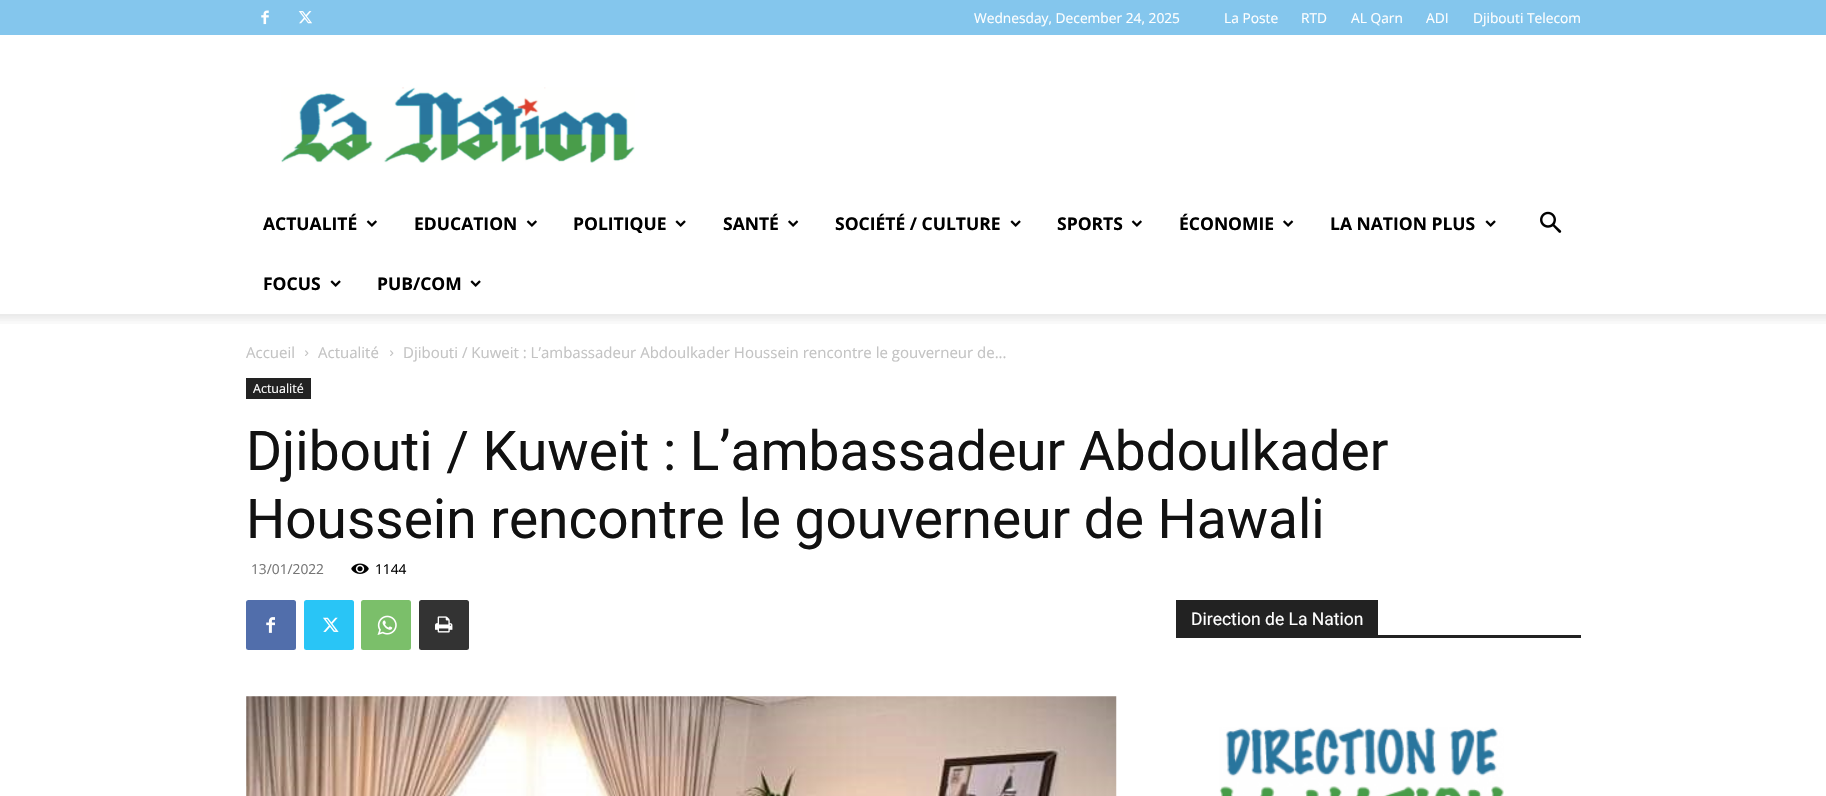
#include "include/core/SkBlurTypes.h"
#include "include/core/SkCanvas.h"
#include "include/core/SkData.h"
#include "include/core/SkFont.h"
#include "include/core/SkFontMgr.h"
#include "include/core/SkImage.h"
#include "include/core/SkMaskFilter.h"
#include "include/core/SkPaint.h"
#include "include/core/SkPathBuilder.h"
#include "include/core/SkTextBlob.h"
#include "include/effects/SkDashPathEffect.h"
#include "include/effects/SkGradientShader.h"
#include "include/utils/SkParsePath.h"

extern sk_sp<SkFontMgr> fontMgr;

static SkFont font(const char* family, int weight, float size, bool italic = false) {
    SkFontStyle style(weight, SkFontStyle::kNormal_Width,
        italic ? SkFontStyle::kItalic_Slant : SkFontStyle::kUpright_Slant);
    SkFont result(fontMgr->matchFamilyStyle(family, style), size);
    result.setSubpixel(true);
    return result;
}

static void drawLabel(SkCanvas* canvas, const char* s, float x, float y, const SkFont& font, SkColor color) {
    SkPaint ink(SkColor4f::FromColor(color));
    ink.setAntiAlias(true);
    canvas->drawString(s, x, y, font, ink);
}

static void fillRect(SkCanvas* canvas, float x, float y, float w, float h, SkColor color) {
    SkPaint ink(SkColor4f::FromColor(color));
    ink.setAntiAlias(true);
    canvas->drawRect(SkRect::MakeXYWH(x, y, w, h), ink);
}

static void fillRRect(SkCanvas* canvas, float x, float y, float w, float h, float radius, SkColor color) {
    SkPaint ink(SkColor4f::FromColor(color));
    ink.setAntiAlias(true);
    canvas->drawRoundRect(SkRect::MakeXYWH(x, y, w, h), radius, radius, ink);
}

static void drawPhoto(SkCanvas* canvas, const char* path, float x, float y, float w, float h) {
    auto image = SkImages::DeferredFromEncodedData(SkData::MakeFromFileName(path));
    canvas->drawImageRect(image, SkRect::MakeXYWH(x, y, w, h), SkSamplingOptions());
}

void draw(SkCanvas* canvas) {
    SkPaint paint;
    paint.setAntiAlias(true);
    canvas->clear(0xFFFFFFFF);
    fillRect(canvas, 0, 0, 1826, 35, 0xFF84C6ED);
    drawPhoto(canvas, "assets/img1.png", 261, 10, 8, 15);
    drawPhoto(canvas, "assets/img2.png", 298, 11, 14, 13);
    SkFont font1 = font("Open Sans", 400, 13.75f);
    drawLabel(canvas, "Wednesday, December 24, 2025", 974, 23, font1, 0xFFFFFFFF);
    drawLabel(canvas, "La Poste", 1224, 23, font1, 0xFFFFFFFF);
    drawLabel(canvas, "RTD", 1301, 23, font1, 0xFFFFFFFF);
    drawLabel(canvas, "AL Qarn", 1351, 23, font1, 0xFFFFFFFF);
    drawLabel(canvas, "ADI", 1426, 23, font1, 0xFFFFFFFF);
    drawLabel(canvas, "Djibouti Telecom", 1473, 23, font1, 0xFFFFFFFF);
    drawPhoto(canvas, "assets/img3.png", 281, 87, 354, 76);
    SkFont font2 = font("Open Sans", 700, 17.5f);
    drawLabel(canvas, "ACTUALITÉ", 263, 230, font2, 0xFF000000);
    drawPhoto(canvas, "assets/img4.png", 366, 220, 11, 7);
    drawLabel(canvas, "EDUCATION", 414, 230, font2, 0xFF000000);
    drawPhoto(canvas, "assets/img4.png", 526, 220, 11, 7);
    drawLabel(canvas, "POLITIQUE", 573, 230, font2, 0xFF000000);
    drawPhoto(canvas, "assets/img5.png", 675, 220, 11, 7);
    drawLabel(canvas, "SANTÉ", 723, 230, font2, 0xFF000000);
    drawPhoto(canvas, "assets/img6.png", 788, 220, 11, 7);
    drawLabel(canvas, "SOCIÉTÉ / CULTURE", 835, 230, font2, 0xFF000000);
    drawPhoto(canvas, "assets/img5.png", 1010, 220, 11, 7);
    drawLabel(canvas, "SPORTS", 1057, 230, font2, 0xFF000000);
    drawPhoto(canvas, "assets/img4.png", 1131, 220, 11, 7);
    drawLabel(canvas, "ÉCONOMIE", 1179, 230, font2, 0xFF000000);
    drawPhoto(canvas, "assets/img6.png", 1283, 220, 11, 7);
    drawLabel(canvas, "LA NATION PLUS", 1330, 230, font2, 0xFF000000);
    drawPhoto(canvas, "assets/img5.png", 1485, 220, 11, 7);
    drawLabel(canvas, "FOCUS", 263, 290, font2, 0xFF000000);
    drawPhoto(canvas, "assets/img5.png", 330, 280, 11, 7);
    drawLabel(canvas, "PUB/COM", 377, 290, font2, 0xFF000000);
    drawPhoto(canvas, "assets/img5.png", 470, 280, 11, 7);
    drawPhoto(canvas, "assets/img7.png", 1540, 211, 22, 22);
    drawPhoto(canvas, "assets/img8.png", 0, 314, 1826, 10);
    SkFont font3 = font("Open Sans", 400, 15);
    drawLabel(canvas, "Accueil", 246, 358, font3, 0xFFC3C3C3);
    drawPhoto(canvas, "assets/img9.png", 305, 350, 4, 6);
    drawLabel(canvas, "Actualité", 318, 358, font3, 0xFFC3C3C3);
    drawPhoto(canvas, "assets/img9.png", 390, 350, 4, 6);
    drawLabel(canvas, "Djibouti / Kuweit : L’ambassadeur Abdoulkader Houssein rencontre le gouverneur de...", 403, 358, font3, 0xFFC3C3C3);
    fillRect(canvas, 246, 378, 65, 21, 0xFF222222);
    SkFont font4 = font("Open Sans", 400, 12.5f);
    drawLabel(canvas, "Actualité", 253, 393, font4, 0xFFFFFFFF);
    SkFont font5 = font("Roboto", 400, 55);
    drawLabel(canvas, "Djibouti / Kuweit : L’ambassadeur Abdoulkader", 246, 470, font5, 0xFF111111);
    drawLabel(canvas, "Houssein rencontre le gouverneur de Hawali", 246, 538, font5, 0xFF111111);
    drawLabel(canvas, "13/01/2022", 251, 574, font1, 0xFF767676);
    drawPhoto(canvas, "assets/img10.png", 351, 563, 18, 11);
    drawLabel(canvas, "1144", 375, 574, font1, 0xFF000000);
    fillRRect(canvas, 246, 600, 50, 50, 2.5f, 0xFF516EAB);
    drawPhoto(canvas, "assets/img11.png", 266, 617, 9, 16);
    fillRRect(canvas, 304, 600, 50, 50, 2.5f, 0xFF29C5F6);
    drawPhoto(canvas, "assets/img12.png", 323, 617, 16, 15);
    fillRRect(canvas, 361, 600, 50, 50, 2.5f, 0xFF7BBF6A);
    drawPhoto(canvas, "assets/img13.png", 377, 615, 20, 20);
    fillRRect(canvas, 419, 600, 50, 50, 2.5f, 0xFF333333);
    drawPhoto(canvas, "assets/img14.png", 435, 616, 18, 17);
    drawPhoto(canvas, "assets/img15.png", 246, 696, 871, 100);
    fillRect(canvas, 1176, 635, 405, 3, 0xFF222222);
    fillRect(canvas, 1176, 600, 202, 35, 0xFF222222);
    SkFont font6 = font("Roboto", 400, 17.5f);
    drawLabel(canvas, "Direction de La Nation", 1191, 625, font6, 0xFFFFFFFF);
    drawPhoto(canvas, "assets/img16.png", 1219, 727, 285, 69);
}
